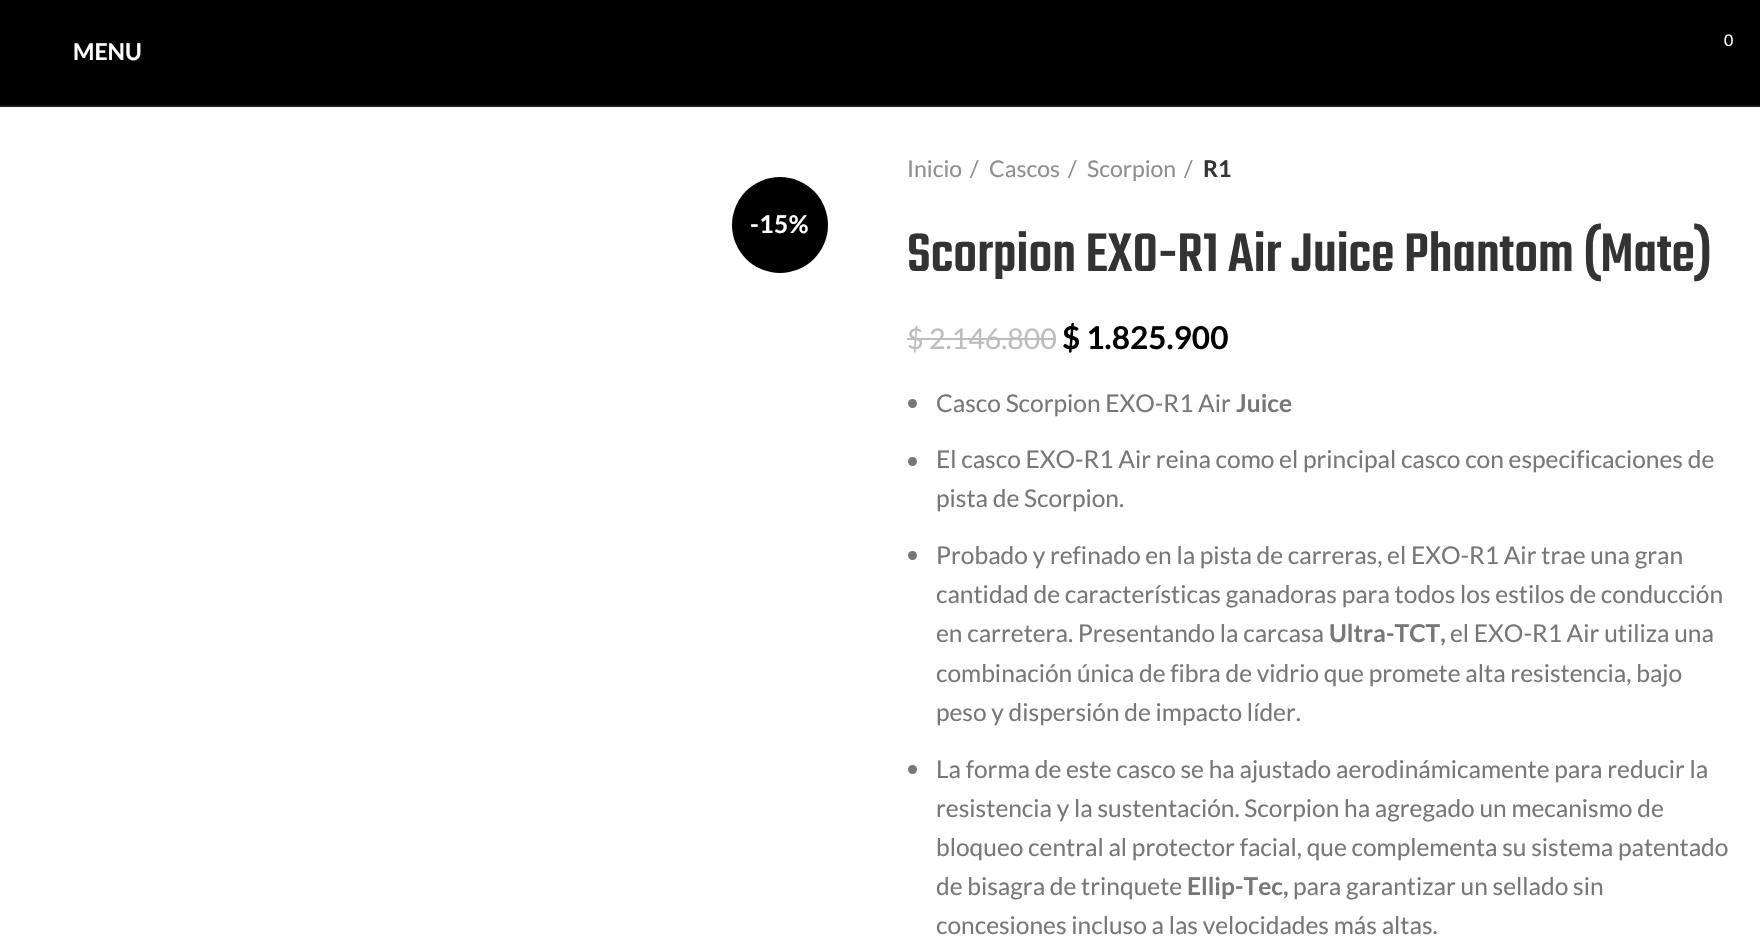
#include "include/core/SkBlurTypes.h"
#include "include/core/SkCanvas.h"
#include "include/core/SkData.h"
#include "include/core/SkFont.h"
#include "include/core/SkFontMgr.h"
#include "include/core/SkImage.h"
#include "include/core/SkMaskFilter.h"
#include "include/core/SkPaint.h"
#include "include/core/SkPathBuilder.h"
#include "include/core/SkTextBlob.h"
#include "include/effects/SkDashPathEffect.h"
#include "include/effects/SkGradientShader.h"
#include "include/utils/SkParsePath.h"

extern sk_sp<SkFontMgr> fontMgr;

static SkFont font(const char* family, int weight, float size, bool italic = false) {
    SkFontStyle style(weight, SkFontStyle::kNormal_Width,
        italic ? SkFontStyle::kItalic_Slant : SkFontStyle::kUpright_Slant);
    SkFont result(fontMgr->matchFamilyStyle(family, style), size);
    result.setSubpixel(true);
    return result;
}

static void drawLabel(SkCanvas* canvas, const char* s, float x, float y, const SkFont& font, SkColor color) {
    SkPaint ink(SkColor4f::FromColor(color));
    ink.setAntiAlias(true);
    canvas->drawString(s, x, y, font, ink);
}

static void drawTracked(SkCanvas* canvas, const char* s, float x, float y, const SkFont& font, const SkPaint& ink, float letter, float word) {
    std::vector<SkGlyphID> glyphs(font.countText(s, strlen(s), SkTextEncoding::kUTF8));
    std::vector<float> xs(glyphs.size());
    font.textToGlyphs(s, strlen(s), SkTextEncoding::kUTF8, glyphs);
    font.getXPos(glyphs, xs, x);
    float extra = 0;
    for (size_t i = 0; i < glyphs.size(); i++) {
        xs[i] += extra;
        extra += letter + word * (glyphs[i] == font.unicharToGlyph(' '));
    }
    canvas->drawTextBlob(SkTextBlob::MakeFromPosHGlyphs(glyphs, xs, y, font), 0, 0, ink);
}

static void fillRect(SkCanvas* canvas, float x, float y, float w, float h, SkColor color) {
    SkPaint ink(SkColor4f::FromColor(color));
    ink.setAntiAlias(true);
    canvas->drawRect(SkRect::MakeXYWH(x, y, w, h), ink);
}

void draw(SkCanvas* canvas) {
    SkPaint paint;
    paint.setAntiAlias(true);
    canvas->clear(0xFFFFFFFF);
    fillRect(canvas, 0, 0, 1760, 105, 0xFF000000);
    fillRect(canvas, 0, 105, 1760, 2, 0xFF1A1A1A);
    SkFont font1 = font("Lato", 400, 16);
    drawLabel(canvas, "0", 1724, 46, font1, 0xFFFFFFFF);
    SkFont font2 = font("Lato", 700, 23);
    drawLabel(canvas, "MENU", 73, 60, font2, 0xFFFFFFFF);
    paint.setColor(0xFF000000);
    canvas->drawCircle(780, 225, 48, paint);
    SkFont font3 = font("Lato", 700, 24.5f);
    paint.setColor(0xFFFFFFFF);
    drawTracked(canvas, "-15%", 750, 233, font3, paint, 0.5f, 0);
    SkFont font4 = font("Lato", 400, 23);
    drawLabel(canvas, "Inicio", 907, 177, font4, 0xFF8E8E8E);
    drawLabel(canvas, "/", 970, 177, font4, 0xFF8E8E8E);
    drawLabel(canvas, "Cascos", 989, 177, font4, 0xFF8E8E8E);
    drawLabel(canvas, "/", 1068, 177, font4, 0xFF8E8E8E);
    drawLabel(canvas, "Scorpion", 1087, 177, font4, 0xFF8E8E8E);
    drawLabel(canvas, "/", 1184, 177, font4, 0xFF8E8E8E);
    drawLabel(canvas, "R1", 1203, 177, font2, 0xFF333333);
    SkFont font5 = font("Teko", 500, 59.5f);
    drawLabel(canvas, "Scorpion EXO-R1 Air Juice Phantom (Mate)", 907, 271, font5, 0xFF333333);
    SkFont font6 = font("Lato", 400, 28.5f);
    drawLabel(canvas, "$ 2.146.800", 907, 349, font6, 0xFFBDBDBD);
    fillRect(canvas, 907, 338, 148, 2, 0xFFBDBDBD);
    SkFont font7 = font("Lato", 700, 31.5f);
    drawLabel(canvas, "$ 1.825.900", 1062, 349, font7, 0xFF000000);
    paint.setColor(0xFF777777);
    canvas->drawCircle(912.5f, 403.5f, 4.5f, paint);
    SkFont font8 = font("Lato", 400, 24.5f);
    drawLabel(canvas, "Casco Scorpion EXO-R1 Air", 936, 412, font8, 0xFF777777);
    drawLabel(canvas, "Juice", 1236, 412, font3, 0xFF777777);
    canvas->drawCircle(912.5f, 461.5f, 4.5f, paint);
    drawLabel(canvas, "El casco EXO-R1 Air reina como el principal casco con especificaciones de", 936, 468, font8, 0xFF777777);
    drawLabel(canvas, "pista de Scorpion.", 936, 507, font8, 0xFF777777);
    canvas->drawCircle(912.5f, 555.5f, 4.5f, paint);
    drawLabel(canvas, "Probado y refinado en la pista de carreras, el EXO-R1 Air trae una gran", 936, 564, font8, 0xFF777777);
    drawLabel(canvas, "cantidad de características ganadoras para todos los estilos de conducción", 936, 603, font8, 0xFF777777);
    drawLabel(canvas, "en carretera. Presentando la carcasa", 936, 642, font8, 0xFF777777);
    drawLabel(canvas, "Ultra-TCT,", 1329, 642, font3, 0xFF777777);
    drawLabel(canvas, "el EXO-R1 Air utiliza una", 1450, 642, font8, 0xFF777777);
    drawLabel(canvas, "combinación única de fibra de vidrio que promete alta resistencia, bajo", 936, 682, font8, 0xFF777777);
    drawLabel(canvas, "peso y dispersión de impacto líder.", 936, 721, font8, 0xFF777777);
    canvas->drawCircle(912.5f, 769.5f, 4.5f, paint);
    drawLabel(canvas, "La forma de este casco se ha ajustado aerodinámicamente para reducir la", 936, 778, font8, 0xFF777777);
    drawLabel(canvas, "resistencia y la sustentación. Scorpion ha agregado un mecanismo de", 936, 817, font8, 0xFF777777);
    drawLabel(canvas, "bloqueo central al protector facial, que complementa su sistema patentado", 936, 856, font8, 0xFF777777);
    drawLabel(canvas, "de bisagra de trinquete", 936, 895, font8, 0xFF777777);
    drawLabel(canvas, "Ellip-Tec,", 1187, 895, font3, 0xFF777777);
    drawLabel(canvas, "para garantizar un sellado sin", 1293, 895, font8, 0xFF777777);
    drawLabel(canvas, "concesiones incluso a las velocidades más altas.", 936, 934, font8, 0xFF777777);
}
